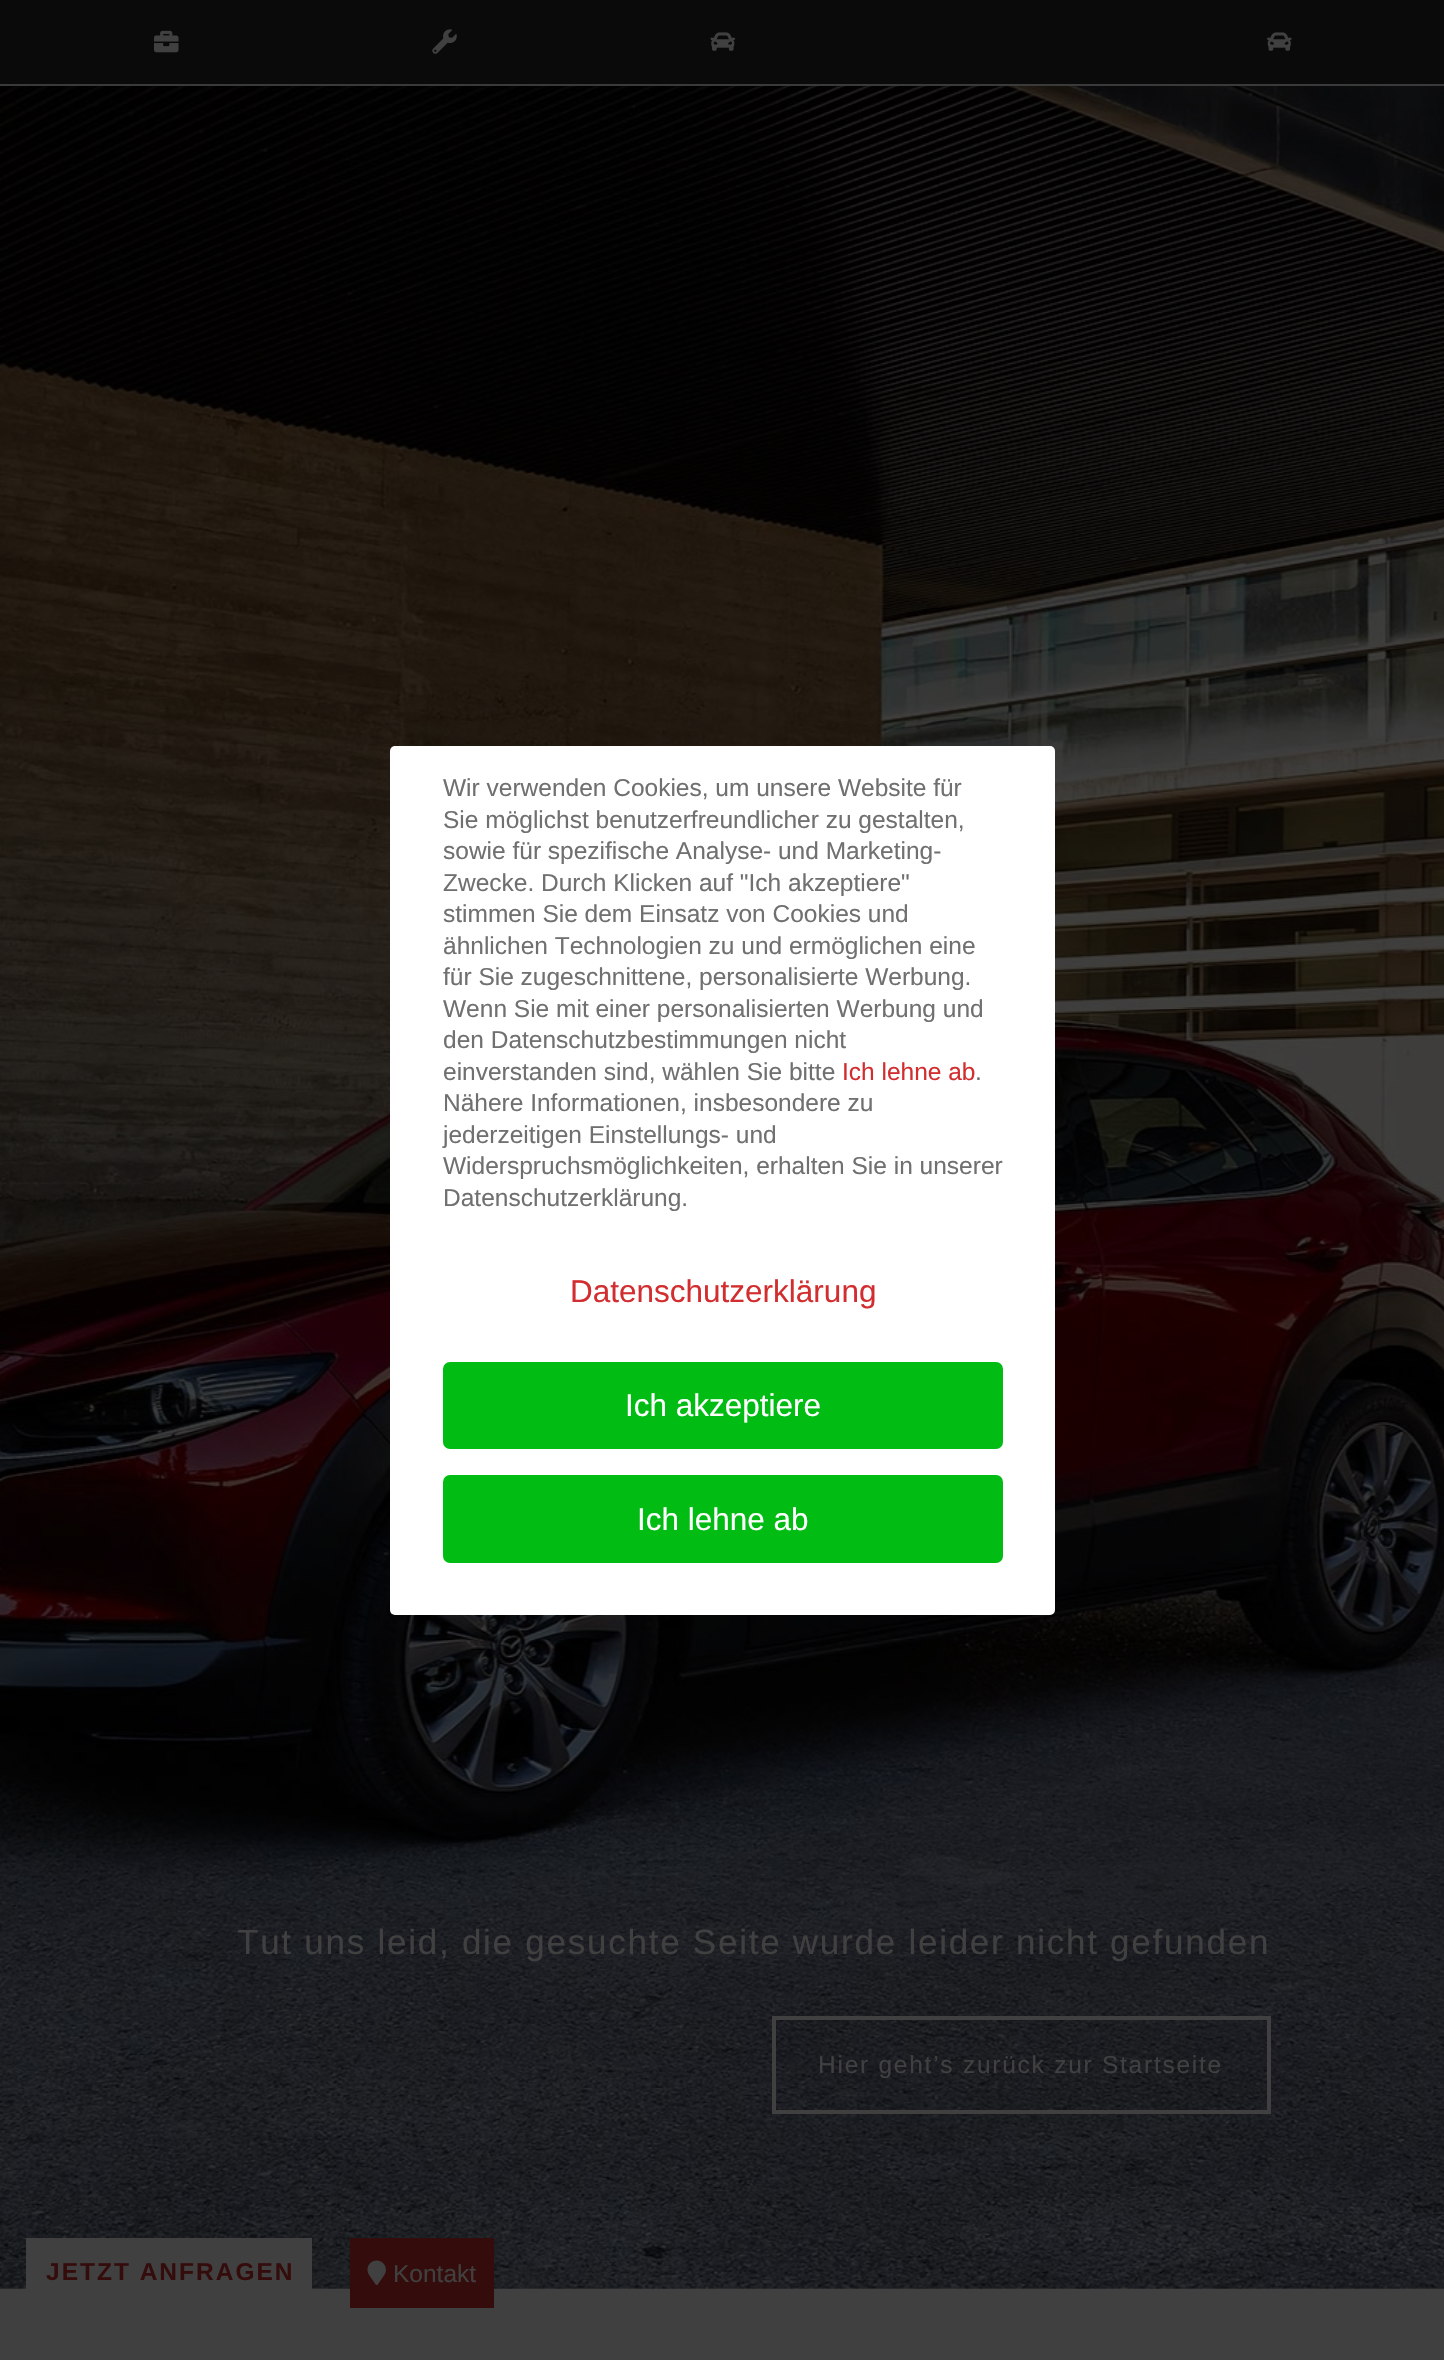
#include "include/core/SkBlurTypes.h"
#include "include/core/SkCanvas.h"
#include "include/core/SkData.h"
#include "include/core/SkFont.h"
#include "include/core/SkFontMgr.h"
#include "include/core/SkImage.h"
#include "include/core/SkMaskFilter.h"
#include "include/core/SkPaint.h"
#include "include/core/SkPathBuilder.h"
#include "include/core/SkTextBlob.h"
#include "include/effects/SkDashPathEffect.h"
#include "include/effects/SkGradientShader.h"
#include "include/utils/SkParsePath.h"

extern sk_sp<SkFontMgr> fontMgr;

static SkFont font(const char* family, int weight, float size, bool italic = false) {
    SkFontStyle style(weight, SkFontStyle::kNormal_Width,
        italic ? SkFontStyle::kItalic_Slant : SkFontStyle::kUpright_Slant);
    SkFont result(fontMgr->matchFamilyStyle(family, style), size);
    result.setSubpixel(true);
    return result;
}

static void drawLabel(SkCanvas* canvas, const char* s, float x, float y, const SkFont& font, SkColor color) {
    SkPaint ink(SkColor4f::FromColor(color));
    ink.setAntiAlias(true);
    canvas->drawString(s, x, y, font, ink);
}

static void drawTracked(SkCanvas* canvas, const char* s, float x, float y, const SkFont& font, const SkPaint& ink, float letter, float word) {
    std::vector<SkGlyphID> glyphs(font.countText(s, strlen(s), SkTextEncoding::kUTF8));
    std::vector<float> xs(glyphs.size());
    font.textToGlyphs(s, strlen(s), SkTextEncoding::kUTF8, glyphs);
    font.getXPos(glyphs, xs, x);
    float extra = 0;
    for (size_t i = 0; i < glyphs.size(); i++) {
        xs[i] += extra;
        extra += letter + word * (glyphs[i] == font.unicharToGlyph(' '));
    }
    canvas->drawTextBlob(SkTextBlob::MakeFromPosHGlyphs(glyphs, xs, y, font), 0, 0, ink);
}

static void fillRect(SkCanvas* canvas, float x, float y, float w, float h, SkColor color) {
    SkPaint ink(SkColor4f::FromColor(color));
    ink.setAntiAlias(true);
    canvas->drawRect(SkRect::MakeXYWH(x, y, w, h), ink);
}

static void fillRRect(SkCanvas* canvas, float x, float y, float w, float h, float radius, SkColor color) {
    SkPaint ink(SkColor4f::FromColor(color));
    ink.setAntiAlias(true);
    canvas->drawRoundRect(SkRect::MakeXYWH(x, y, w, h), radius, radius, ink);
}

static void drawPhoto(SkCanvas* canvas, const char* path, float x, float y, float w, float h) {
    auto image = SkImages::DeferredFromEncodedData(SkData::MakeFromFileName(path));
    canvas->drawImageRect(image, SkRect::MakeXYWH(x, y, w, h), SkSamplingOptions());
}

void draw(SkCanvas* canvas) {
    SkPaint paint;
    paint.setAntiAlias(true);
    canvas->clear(0xFF3D3D3D);
    drawPhoto(canvas, "assets/img1.png", 0, 86, 1444, 2203);
    fillRRect(canvas, 390, 746, 665, 869, 5, 0xFFFFFFFF);
    SkFont font1 = font("Liberation Sans", 400, 24.5f);
    drawLabel(canvas, "Wir verwenden Cookies, um unsere Website für", 443, 796, font1, 0xFF707070);
    drawLabel(canvas, "Sie möglichst benutzerfreundlicher zu gestalten,", 443, 828, font1, 0xFF707070);
    drawLabel(canvas, "sowie für spezifische Analyse- und Marketing-", 443, 859, font1, 0xFF707070);
    drawLabel(canvas, "Zwecke. Durch Klicken auf \"Ich akzeptiere\"", 443, 891, font1, 0xFF707070);
    drawLabel(canvas, "stimmen Sie dem Einsatz von Cookies und", 443, 922, font1, 0xFF707070);
    drawLabel(canvas, "ähnlichen Technologien zu und ermöglichen eine", 443, 954, font1, 0xFF707070);
    drawLabel(canvas, "für Sie zugeschnittene, personalisierte Werbung.", 443, 985, font1, 0xFF707070);
    drawLabel(canvas, "Wenn Sie mit einer personalisierten Werbung und", 443, 1017, font1, 0xFF707070);
    drawLabel(canvas, "den Datenschutzbestimmungen nicht", 443, 1048, font1, 0xFF707070);
    drawLabel(canvas, "einverstanden sind, wählen Sie bitte", 443, 1080, font1, 0xFF707070);
    drawLabel(canvas, "Ich lehne ab", 842, 1080, font1, 0xFFD22E30);
    drawLabel(canvas, ".", 975, 1080, font1, 0xFF707070);
    drawLabel(canvas, "Nähere Informationen, insbesondere zu", 443, 1111, font1, 0xFF707070);
    drawLabel(canvas, "jederzeitigen Einstellungs- und", 443, 1143, font1, 0xFF707070);
    drawLabel(canvas, "Widerspruchsmöglichkeiten, erhalten Sie in unserer", 443, 1174, font1, 0xFF707070);
    drawLabel(canvas, "Datenschutzerklärung.", 443, 1206, font1, 0xFF707070);
    SkFont font2 = font("Liberation Sans", 400, 31.5f);
    drawLabel(canvas, "Datenschutzerklärung", 570, 1302, font2, 0xFFD22E30);
    fillRRect(canvas, 443, 1362, 560, 87, 7, 0xFF00BC13);
    drawLabel(canvas, "Ich akzeptiere", 625, 1416, font2, 0xFFFFFFFF);
    fillRRect(canvas, 443, 1475, 560, 88, 7, 0xFF00BC13);
    drawLabel(canvas, "Ich lehne ab", 637, 1530, font2, 0xFFFFFFFF);
    SkFont font3 = font("Liberation Sans", 400, 35);
    paint.setColor(0xFF404040);
    drawTracked(canvas, "Tut uns leid, die gesuchte Seite wurde leider nicht gefunden", 237, 1954, font3, paint, 1.75f, 0);
    paint.setStroke(true);
    paint.setStrokeWidth(4);
    canvas->drawRect(SkRect::MakeXYWH(774, 2018, 495, 94), paint);
    paint.setStroke(false);
    drawTracked(canvas, "Hier geht’s zurück zur Startseite", 818, 2073, font1, paint, 1.75f, 0);
    fillRect(canvas, 0, 84, 1444, 2, 0xFF3A3A3A);
    fillRect(canvas, 26, 2238, 286, 51, 0xFF404040);
    SkFont font4 = font("Liberation Sans", 700, 24.5f);
    paint.setColor(0xFF350C0C);
    drawTracked(canvas, "JETZT ANFRAGEN", 46, 2280, font4, paint, 2, 0);
    fillRect(canvas, 0, 0, 1444, 84, 0xFF0A0A0A);
    drawPhoto(canvas, "assets/img2.png", 154, 30, 25, 23);
    drawPhoto(canvas, "assets/img3.png", 432, 29, 25, 25);
    drawPhoto(canvas, "assets/img4.png", 710, 32, 25, 19);
    drawPhoto(canvas, "assets/img5.png", 1267, 32, 25, 19);
    fillRect(canvas, 0, 2289, 1444, 71, 0xFF404040);
    fillRect(canvas, 350, 2238, 144, 70, 0xFF350C0C);
    drawPhoto(canvas, "assets/img6.png", 367, 2260, 19, 25);
    drawLabel(canvas, "Kontakt", 393, 2282, font1, 0xFF404040);
}
